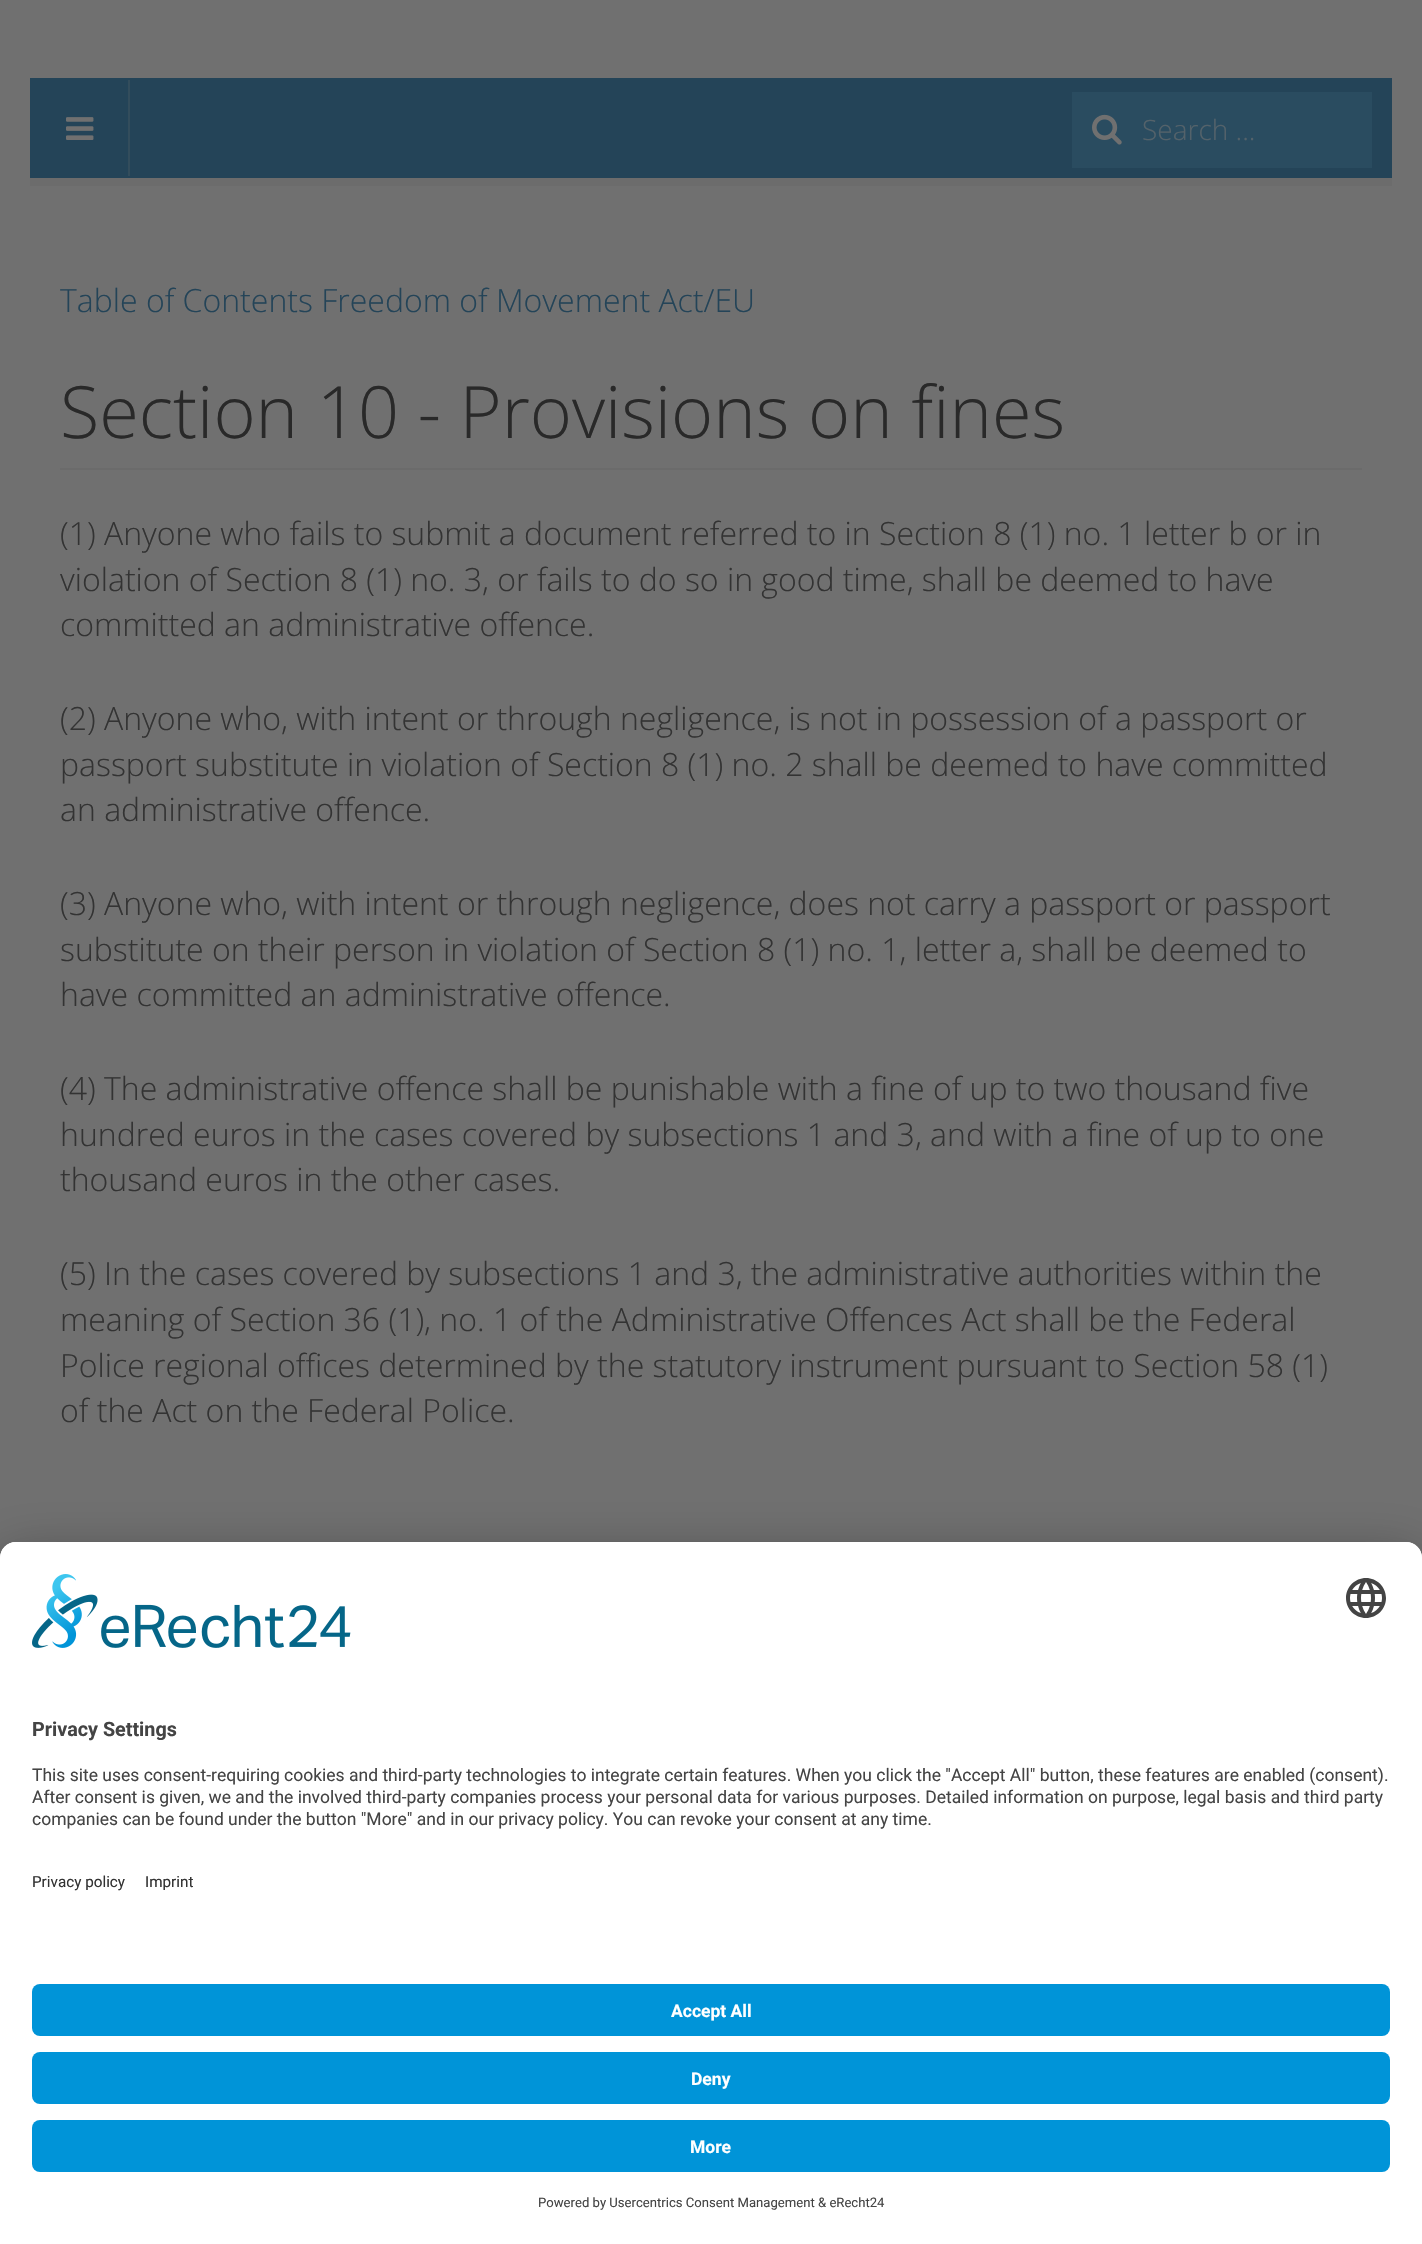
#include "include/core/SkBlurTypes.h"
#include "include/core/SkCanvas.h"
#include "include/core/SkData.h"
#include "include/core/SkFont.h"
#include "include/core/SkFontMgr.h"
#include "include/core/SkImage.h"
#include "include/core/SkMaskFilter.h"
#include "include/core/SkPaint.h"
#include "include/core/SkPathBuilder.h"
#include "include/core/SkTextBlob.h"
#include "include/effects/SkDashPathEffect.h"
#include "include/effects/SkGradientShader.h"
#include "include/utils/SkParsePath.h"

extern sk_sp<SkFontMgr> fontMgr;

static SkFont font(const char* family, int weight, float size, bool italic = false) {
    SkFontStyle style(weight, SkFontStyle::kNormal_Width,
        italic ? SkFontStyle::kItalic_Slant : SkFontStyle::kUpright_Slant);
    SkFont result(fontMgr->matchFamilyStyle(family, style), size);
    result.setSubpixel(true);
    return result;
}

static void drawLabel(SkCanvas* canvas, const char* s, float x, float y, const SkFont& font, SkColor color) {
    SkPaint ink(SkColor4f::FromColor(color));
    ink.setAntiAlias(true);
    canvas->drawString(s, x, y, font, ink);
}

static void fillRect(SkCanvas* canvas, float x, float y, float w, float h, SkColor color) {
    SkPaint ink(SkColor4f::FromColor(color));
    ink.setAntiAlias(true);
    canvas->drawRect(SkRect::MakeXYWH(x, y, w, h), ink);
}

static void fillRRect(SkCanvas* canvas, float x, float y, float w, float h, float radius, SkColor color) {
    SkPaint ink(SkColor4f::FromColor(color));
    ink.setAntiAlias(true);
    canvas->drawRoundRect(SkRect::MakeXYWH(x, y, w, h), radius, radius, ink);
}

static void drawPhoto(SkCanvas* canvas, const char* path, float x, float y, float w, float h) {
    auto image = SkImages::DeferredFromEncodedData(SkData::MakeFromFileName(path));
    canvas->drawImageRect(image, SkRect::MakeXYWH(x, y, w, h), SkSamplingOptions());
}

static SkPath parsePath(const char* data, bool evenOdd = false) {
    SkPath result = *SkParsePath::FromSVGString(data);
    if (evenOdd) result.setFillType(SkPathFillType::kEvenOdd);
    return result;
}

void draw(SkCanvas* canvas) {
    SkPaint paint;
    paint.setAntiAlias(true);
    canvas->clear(0xFF707070);
    fillRect(canvas, 30, 178, 1362, 8, 0xFF6C6C6C);
    fillRect(canvas, 30, 78, 1362, 100, 0xFF244458);
    fillRect(canvas, 128, 80, 2, 96, 0xFF334D5C);
    drawPhoto(canvas, "assets/img1.png", 66, 117, 28, 23);
    fillRect(canvas, 1072, 92, 300, 76, 0xFF2A4C60);
    drawPhoto(canvas, "assets/img2.png", 1092, 114, 30, 31);
    SkFont font1 = font("Open Sans", 300, 28);
    drawLabel(canvas, "Search ...", 1142, 140, font1, 0xFF54626A);
    SkFont font2 = font("Open Sans", 300, 32);
    drawLabel(canvas, "Table of Contents Freedom of Movement Act/EU", 60, 312, font2, 0xFF244458);
    fillRect(canvas, 60, 468, 1302, 2, 0xFF6B6B6B);
    SkFont font3 = font("Open Sans", 300, 72);
    drawLabel(canvas, "Section 10 - Provisions on fines", 60, 438, font3, 0xFF292929);
    drawLabel(canvas, "(1) Anyone who fails to submit a document referred to in Section 8 (1) no. 1 letter b or in", 60, 545, font2, 0xFF333333);
    drawLabel(canvas, "violation of Section 8 (1) no. 3, or fails to do so in good time, shall be deemed to have", 60, 591, font2, 0xFF333333);
    drawLabel(canvas, "committed an administrative offence.", 60, 636, font2, 0xFF333333);
    drawLabel(canvas, "(2) Anyone who, with intent or through negligence, is not in possession of a passport or", 60, 730, font2, 0xFF333333);
    drawLabel(canvas, "passport substitute in violation of Section 8 (1) no. 2 shall be deemed to have committed", 60, 776, font2, 0xFF333333);
    drawLabel(canvas, "an administrative offence.", 60, 821, font2, 0xFF333333);
    drawLabel(canvas, "(3) Anyone who, with intent or through negligence, does not carry a passport or passport", 60, 915, font2, 0xFF333333);
    drawLabel(canvas, "substitute on their person in violation of Section 8 (1) no. 1, letter a, shall be deemed to", 60, 961, font2, 0xFF333333);
    drawLabel(canvas, "have committed an administrative offence.", 60, 1006, font2, 0xFF333333);
    drawLabel(canvas, "(4) The administrative offence shall be punishable with a fine of up to two thousand five", 60, 1100, font2, 0xFF333333);
    drawLabel(canvas, "hundred euros in the cases covered by subsections 1 and 3, and with a fine of up to one", 60, 1146, font2, 0xFF333333);
    drawLabel(canvas, "thousand euros in the other cases.", 60, 1191, font2, 0xFF333333);
    drawLabel(canvas, "(5) In the cases covered by subsections 1 and 3, the administrative authorities within the", 60, 1285, font2, 0xFF333333);
    drawLabel(canvas, "meaning of Section 36 (1), no. 1 of the Administrative Offences Act shall be the Federal", 60, 1331, font2, 0xFF333333);
    drawLabel(canvas, "Police regional offices determined by the statutory instrument pursuant to Section 58 (1)", 60, 1377, font2, 0xFF333333);
    drawLabel(canvas, "of the Act on the Federal Police.", 60, 1422, font2, 0xFF333333);
    paint.setColor(0x4D000000);
    paint.setMaskFilter(SkMaskFilter::MakeBlur(kNormal_SkBlurStyle, 28));
    canvas->drawRoundRect(SkRect::MakeXYWH(0, 1582, 1422, 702), 16, 16, paint);
    paint.setMaskFilter(nullptr);
    paint.setColor(0x38000000);
    paint.setMaskFilter(SkMaskFilter::MakeBlur(kNormal_SkBlurStyle, 26));
    canvas->drawRoundRect(SkRect::MakeXYWH(0, 1552, 1422, 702), 16, 16, paint);
    paint.setMaskFilter(nullptr);
    paint.setColor(0xFFFFFFFF);
    canvas->drawPath(parsePath("M16 1542H1406C1415 1542 1422 1549 1422 1558V2244H0V1558C0 1549 7 1542 16 1542Z"), paint);
    canvas->drawPath(parsePath("M16 1542H1406C1415 1542 1422 1549 1422 1558V1960H0V1558C0 1549 7 1542 16 1542Z"), paint);
    drawPhoto(canvas, "assets/img3.png", 32, 1574, 319, 74);
    drawPhoto(canvas, "assets/img4.png", 1346, 1578, 40, 40);
    SkFont font4 = font("Roboto", 700, 19.75f);
    drawLabel(canvas, "Privacy Settings", 32, 1736, font4, 0xFF444444);
    SkFont font5 = font("Roboto", 400, 17.5f);
    drawLabel(canvas, "This site uses consent-requiring cookies and third-party technologies to integrate certain features. When you click the \"Accept All\" button, these features are enabled (consent).", 32, 1781, font5, 0xFF444444);
    drawLabel(canvas, "After consent is given, we and the involved third-party companies process your personal data for various purposes. Detailed information on purpose, legal basis and third party", 32, 1803, font5, 0xFF444444);
    drawLabel(canvas, "companies can be found under the button \"More\" and in our privacy policy. You can revoke your consent at any time.", 32, 1825, font5, 0xFF444444);
    SkFont font6 = font("Roboto", 400, 15.25f);
    drawLabel(canvas, "Privacy policy", 32, 1887, font6, 0xFF333333);
    drawLabel(canvas, "Imprint", 145, 1887, font6, 0xFF333333);
    fillRRect(canvas, 32, 1984, 1358, 52, 8, 0xFF0094D8);
    SkFont font7 = font("Roboto", 700, 17.5f);
    drawLabel(canvas, "Accept All", 671, 2017, font7, 0xFFFFFFFF);
    fillRRect(canvas, 32, 2052, 1358, 52, 8, 0xFF0094D8);
    drawLabel(canvas, "Deny", 691, 2085, font7, 0xFFFFFFFF);
    fillRRect(canvas, 32, 2120, 1358, 52, 8, 0xFF0094D8);
    drawLabel(canvas, "More", 690, 2153, font7, 0xFFFFFFFF);
    SkFont font8 = font("Roboto", 400, 13.1f);
    drawLabel(canvas, "Powered by Usercentrics Consent Management", 538, 2207, font8, 0xFF444444);
    drawLabel(canvas, "& eRecht24", 818, 2207, font8, 0xFF444444);
}
